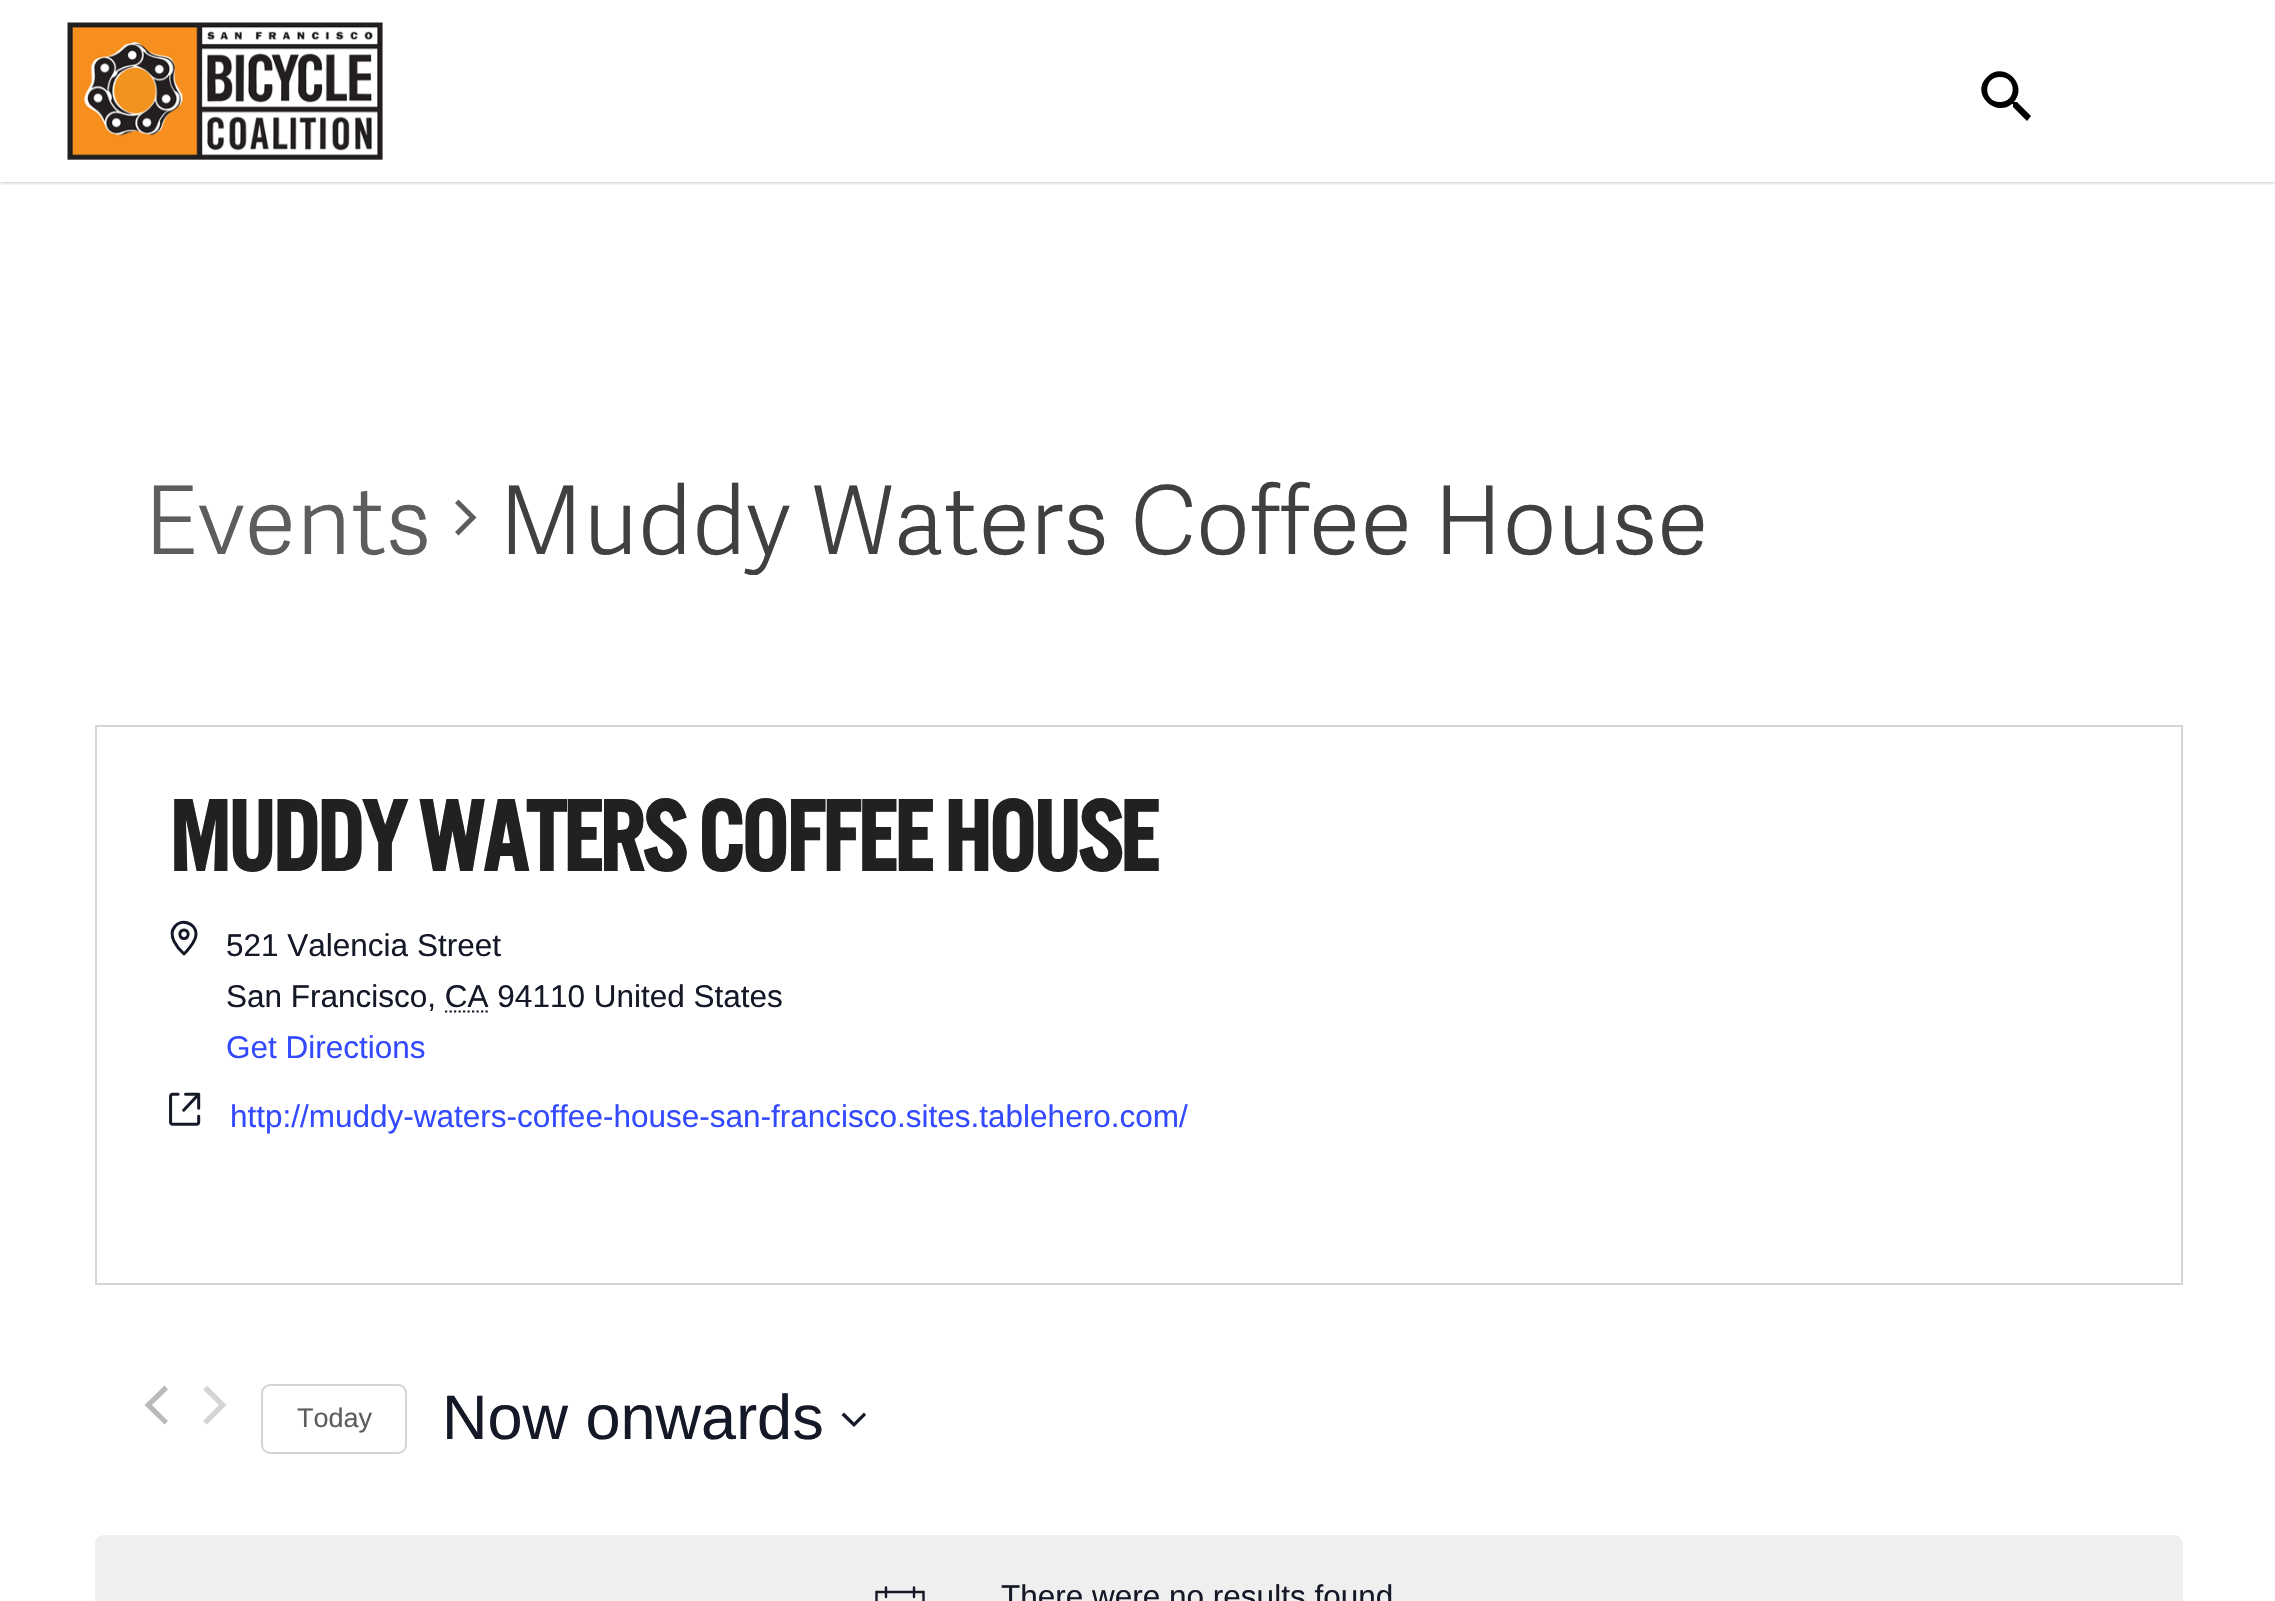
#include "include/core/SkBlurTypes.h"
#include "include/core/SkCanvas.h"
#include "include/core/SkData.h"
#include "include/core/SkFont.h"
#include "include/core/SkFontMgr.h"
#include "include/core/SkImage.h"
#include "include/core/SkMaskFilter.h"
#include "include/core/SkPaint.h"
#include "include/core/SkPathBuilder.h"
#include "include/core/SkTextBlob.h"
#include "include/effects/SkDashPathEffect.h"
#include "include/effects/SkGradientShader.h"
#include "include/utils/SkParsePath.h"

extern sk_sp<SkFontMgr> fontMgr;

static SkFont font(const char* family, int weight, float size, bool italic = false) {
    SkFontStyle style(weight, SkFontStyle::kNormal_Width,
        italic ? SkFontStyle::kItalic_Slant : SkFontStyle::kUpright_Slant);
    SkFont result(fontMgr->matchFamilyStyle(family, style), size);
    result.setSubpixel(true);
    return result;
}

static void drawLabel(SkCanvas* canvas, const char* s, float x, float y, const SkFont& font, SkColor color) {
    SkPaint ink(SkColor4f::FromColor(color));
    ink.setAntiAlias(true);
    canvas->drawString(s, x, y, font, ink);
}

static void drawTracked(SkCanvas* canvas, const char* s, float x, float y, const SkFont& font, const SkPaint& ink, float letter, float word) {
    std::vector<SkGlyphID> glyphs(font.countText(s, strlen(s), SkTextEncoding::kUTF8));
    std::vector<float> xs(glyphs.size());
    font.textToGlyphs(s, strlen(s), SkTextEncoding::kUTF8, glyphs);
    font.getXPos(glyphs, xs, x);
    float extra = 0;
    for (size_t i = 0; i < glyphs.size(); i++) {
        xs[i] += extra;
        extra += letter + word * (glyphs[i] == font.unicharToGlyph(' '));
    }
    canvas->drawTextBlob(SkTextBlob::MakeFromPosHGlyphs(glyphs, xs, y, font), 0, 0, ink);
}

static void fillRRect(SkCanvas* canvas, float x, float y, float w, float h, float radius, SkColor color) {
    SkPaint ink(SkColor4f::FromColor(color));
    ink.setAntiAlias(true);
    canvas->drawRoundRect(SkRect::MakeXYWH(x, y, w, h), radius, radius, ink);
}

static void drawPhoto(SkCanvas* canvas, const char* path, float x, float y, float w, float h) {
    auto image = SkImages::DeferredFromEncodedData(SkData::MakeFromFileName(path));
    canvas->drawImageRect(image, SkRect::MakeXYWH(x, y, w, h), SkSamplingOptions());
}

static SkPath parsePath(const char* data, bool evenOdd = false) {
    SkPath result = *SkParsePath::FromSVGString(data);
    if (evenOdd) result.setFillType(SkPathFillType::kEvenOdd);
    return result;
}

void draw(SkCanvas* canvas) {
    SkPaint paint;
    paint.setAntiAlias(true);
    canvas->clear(0xFFFFFFFF);
    canvas->save();
    canvas->clipRect(SkRect::MakeXYWH(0, 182, 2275, 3));
    paint.setColor(0x57000000);
    paint.setMaskFilter(SkMaskFilter::MakeBlur(kNormal_SkBlurStyle, 2));
    canvas->drawRect(SkRect::MakeXYWH(0, 0, 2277, 182), paint);
    paint.setMaskFilter(nullptr);
    canvas->restore();
    drawPhoto(canvas, "assets/img1.png", 67, 22, 316, 138);
    paint.setColor(0xFF000000);
    canvas->drawPath(parsePath("M2017 102H2015H2014C2029 85 2004 60 1987 77C1970 93 1995 118 2012 104H2013V107L2027 121L2031 116ZM2000 102C1983 102 1983 77 2000 77C2017 77 2017 102 2000 102Z"), paint);
    SkFont font1 = font("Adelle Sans", 300, 94.5f);
    drawLabel(canvas, "Events", 144, 554, font1, 0xFF5D5D5D);
    paint.setColor(0xFF5D5D5D);
    canvas->drawPath(parsePath("M455 503L458.5 499.5L476.5 517.5L458.5 535.5L455 532L469.5 517.5Z"), paint);
    drawLabel(canvas, "Muddy Waters Coffee House", 499, 554, font1, 0xFF404040);
    paint.setStroke(true);
    paint.setStrokeWidth(2);
    paint.setColor(0xFFD5D5D5);
    canvas->drawRect(SkRect::MakeXYWH(96, 726, 2086, 558), paint);
    SkFont font2 = font("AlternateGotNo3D", 700, 103.5f);
    paint.setStroke(false);
    paint.setColor(0xFF212121);
    drawTracked(canvas, "MUDDY WATERS COFFEE HOUSE", 169, 871, font2, paint, -2.25f, 0);
    paint.setStroke(true);
    paint.setStrokeWidth(3);
    paint.setStrokeCap(SkPaint::kRound_Cap);
    paint.setStrokeJoin(SkPaint::kRound_Join);
    paint.setColor(0xFF141827);
    canvas->drawPath(parsePath("M196 934C196 942.5 184 954 184 954C177.5 948 167.5 936 174.5 927C181 918 196 923 196 934ZM184 938.5C189.5 938.5 189.5 930 184 930C178.5 930 178.5 938.5 184 938.5Z"), paint);
    SkFont font3 = font("Liberation Sans", 400, 31.5f);
    drawLabel(canvas, "521 Valencia Street", 226, 956, font3, 0xFF141827);
    drawLabel(canvas, "San Francisco, CA 94110 United States", 226, 1007, font3, 0xFF141827);
    paint.setStrokeWidth(2.2f);
    paint.setStrokeCap(SkPaint::kButt_Cap);
    paint.setStrokeJoin(SkPaint::kMiter_Join);
    paint.setPathEffect(SkDashPathEffect::Make({{2.25f, 2.25f}}, 0));
    canvas->drawPath(parsePath("M445 1011.5H489"), paint);
    paint.setPathEffect(nullptr);
    drawLabel(canvas, "Get Directions", 226, 1058, font3, 0xFF334AFF);
    drawPhoto(canvas, "assets/img2.png", 169, 1092, 32, 34);
    drawLabel(canvas, "http://muddy-waters-coffee-house-san-francisco.sites.tablehero.com/", 230, 1127, font3, 0xFF334AFF);
    paint.setStroke(false);
    paint.setColor(0xFFBABABA);
    canvas->drawPath(parsePath("M168 1421L164.5 1424.5L144.5 1405L164.5 1385.5L168 1389.5L152 1405Z"), paint);
    paint.setColor(0xFFD5D5D5);
    canvas->drawPath(parsePath("M203 1389.5L207 1385.5L226.5 1405L207 1424.5L203 1421L219 1405Z"), paint);
    paint.setStroke(true);
    paint.setStrokeWidth(2);
    canvas->drawRoundRect(SkRect::MakeXYWH(262, 1385, 144, 68), 8, 8, paint);
    SkFont font4 = font("Liberation Sans", 400, 27);
    drawLabel(canvas, "Today", 297, 1427, font4, 0xFF5D5D5D);
    SkFont font5 = font("Liberation Sans", 400, 63);
    drawLabel(canvas, "Now onwards", 442, 1439, font5, 0xFF141827);
    paint.setStroke(false);
    paint.setColor(0xFF141827);
    canvas->drawPath(parsePath("M844 1412.5L854 1422.5L864 1412.5L866 1415L854 1427L841.5 1415Z", true), paint);
    fillRRect(canvas, 95, 1535, 2088, 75, 9, 0xFFEFEFF0);
    paint.setStroke(true);
    paint.setStrokeWidth(2.4f);
    canvas->drawPath(parsePath("M876.5 1592H923.5V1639.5H876.5Z"), paint);
    paint.setStrokeCap(SkPaint::kRound_Cap);
    canvas->drawPath(parsePath("M886 1587.5V1597M914 1587.5V1597"), paint);
    drawLabel(canvas, "There were no results found", 1001, 1607, font3, 0xFF141827);
}
